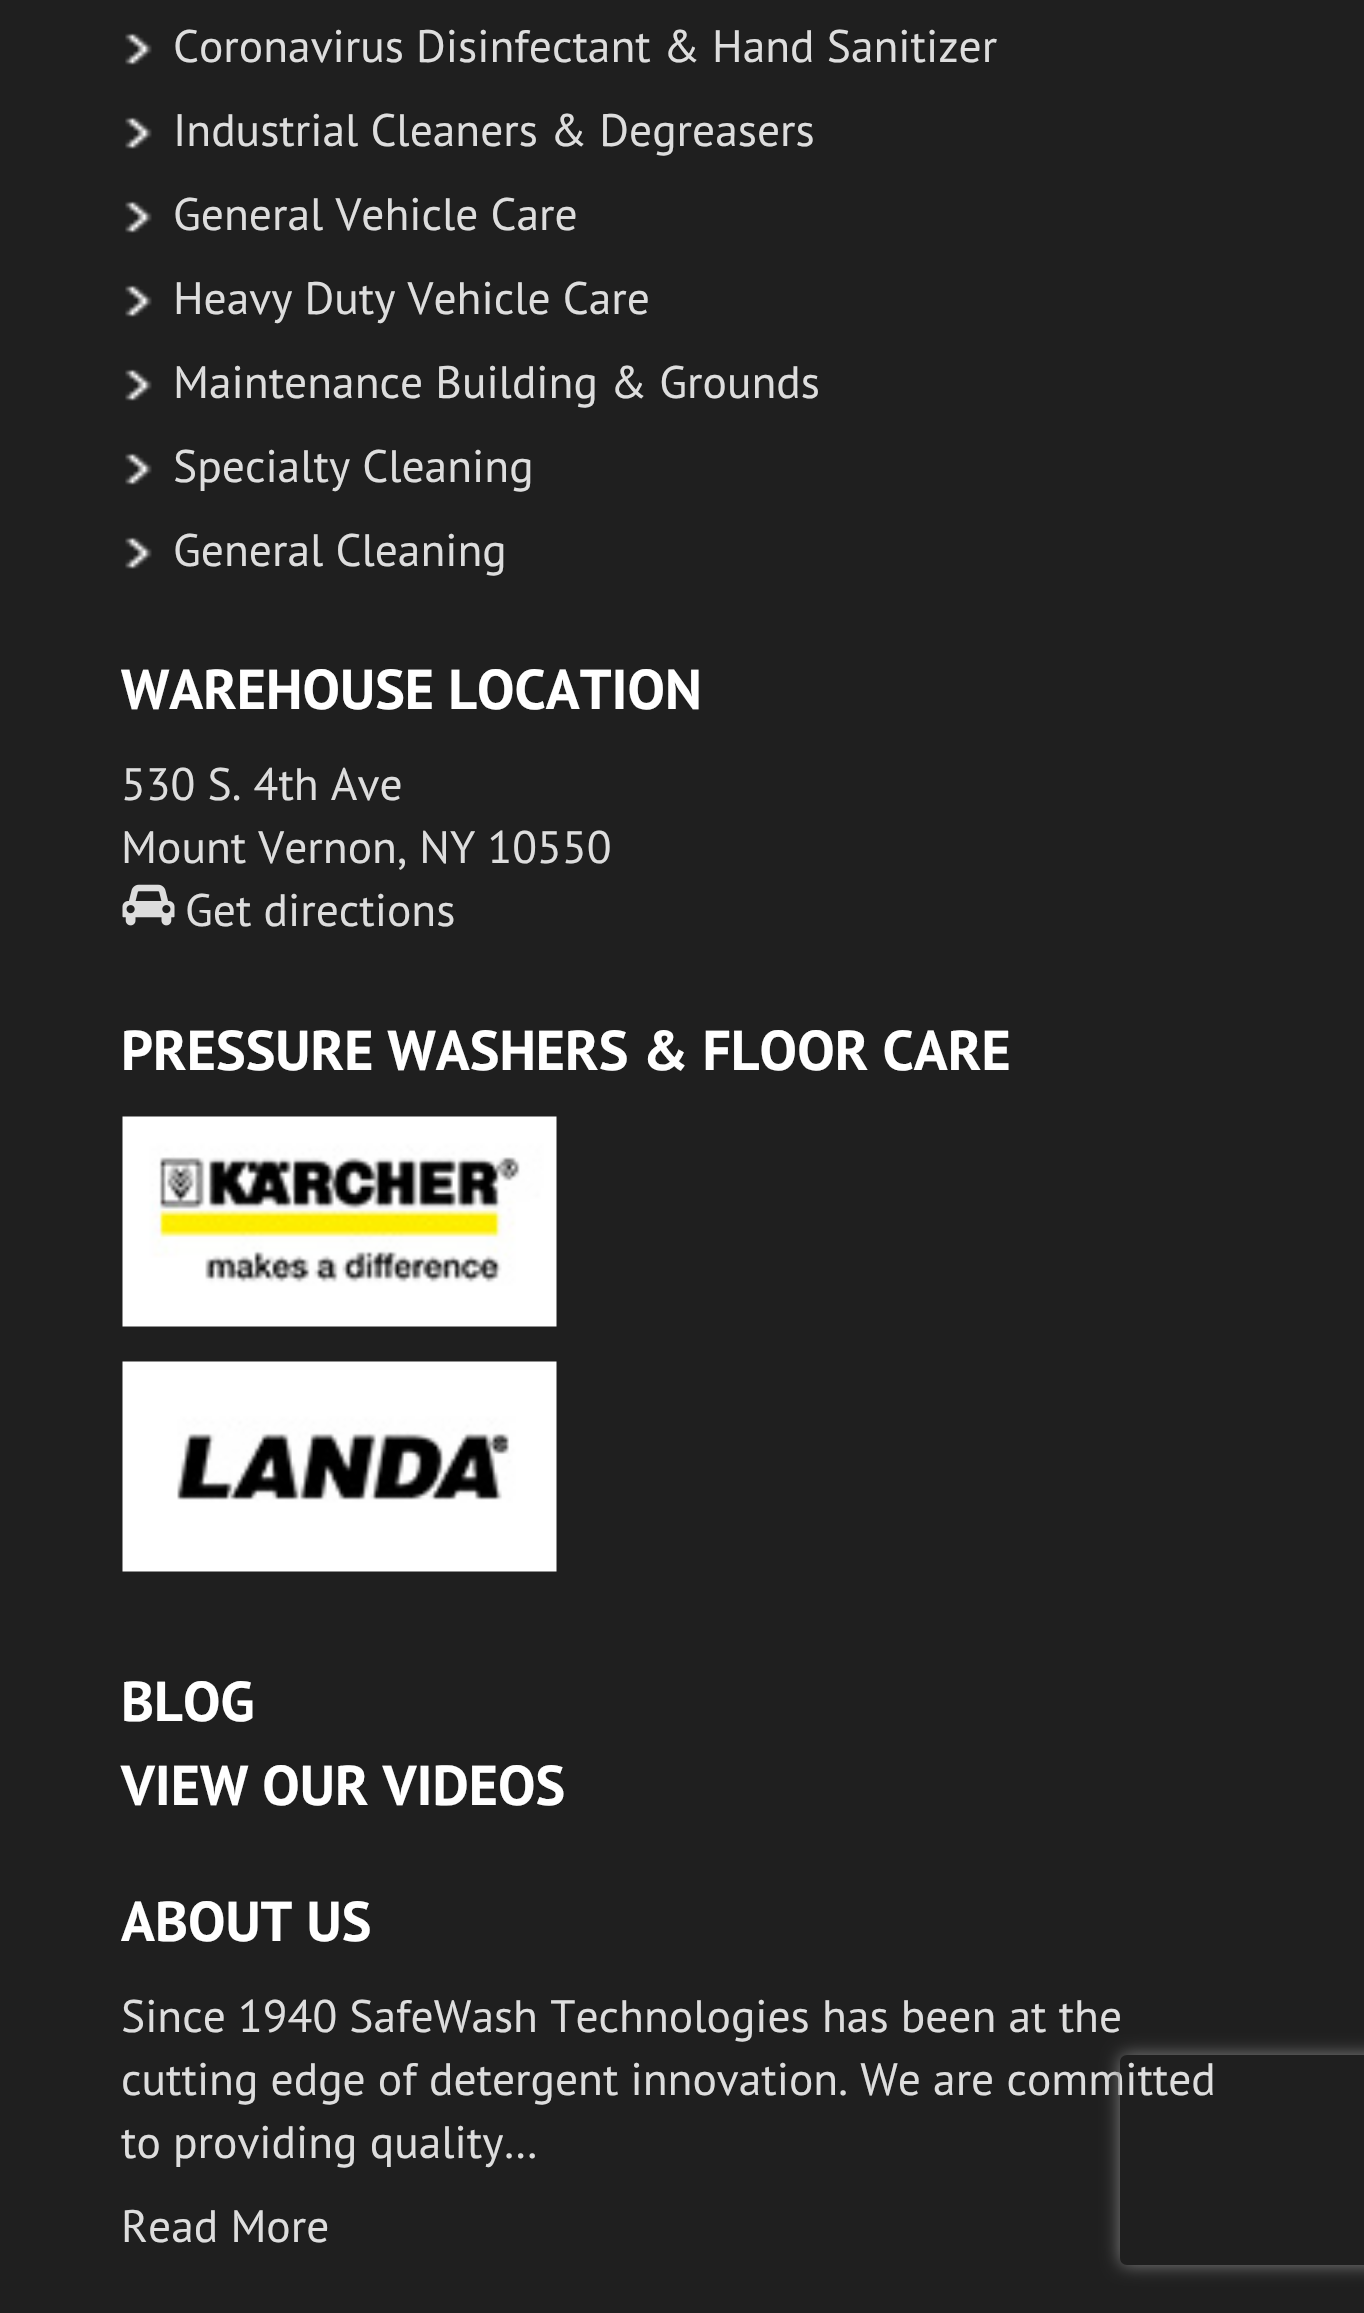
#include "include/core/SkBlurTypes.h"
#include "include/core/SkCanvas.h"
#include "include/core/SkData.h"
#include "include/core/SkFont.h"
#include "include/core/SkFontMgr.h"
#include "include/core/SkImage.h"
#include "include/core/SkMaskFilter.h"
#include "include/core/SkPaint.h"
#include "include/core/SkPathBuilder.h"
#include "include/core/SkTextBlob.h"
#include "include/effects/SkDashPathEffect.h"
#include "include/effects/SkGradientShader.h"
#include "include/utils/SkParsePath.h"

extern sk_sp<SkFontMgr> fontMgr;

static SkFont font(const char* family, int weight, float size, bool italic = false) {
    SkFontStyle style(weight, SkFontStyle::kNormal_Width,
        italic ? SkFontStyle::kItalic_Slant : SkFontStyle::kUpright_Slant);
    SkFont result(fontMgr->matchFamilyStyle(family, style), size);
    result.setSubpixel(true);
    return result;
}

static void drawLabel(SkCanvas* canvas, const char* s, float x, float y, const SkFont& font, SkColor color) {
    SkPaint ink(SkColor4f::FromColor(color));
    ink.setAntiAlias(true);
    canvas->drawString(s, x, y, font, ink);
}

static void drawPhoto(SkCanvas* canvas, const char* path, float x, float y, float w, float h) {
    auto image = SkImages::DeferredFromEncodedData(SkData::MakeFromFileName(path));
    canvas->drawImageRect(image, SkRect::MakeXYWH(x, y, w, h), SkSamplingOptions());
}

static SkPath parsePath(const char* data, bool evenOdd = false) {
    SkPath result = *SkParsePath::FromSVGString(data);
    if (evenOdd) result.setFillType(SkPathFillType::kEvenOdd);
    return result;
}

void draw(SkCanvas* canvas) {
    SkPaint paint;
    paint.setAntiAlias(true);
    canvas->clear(0xFF1F1F1F);
    drawPhoto(canvas, "assets/img1.png", 125, 33, 27, 32);
    SkFont font1 = font("PT Sans", 400, 45.5f);
    drawLabel(canvas, "Coronavirus Disinfectant & Hand Sanitizer", 173, 62, font1, 0xFFDDDDDD);
    drawPhoto(canvas, "assets/img1.png", 125, 117, 27, 32);
    drawLabel(canvas, "Industrial Cleaners & Degreasers", 173, 146, font1, 0xFFDDDDDD);
    drawPhoto(canvas, "assets/img1.png", 125, 201, 27, 32);
    drawLabel(canvas, "General Vehicle Care", 173, 230, font1, 0xFFDDDDDD);
    drawPhoto(canvas, "assets/img1.png", 125, 285, 27, 32);
    drawLabel(canvas, "Heavy Duty Vehicle Care", 173, 314, font1, 0xFFDDDDDD);
    drawPhoto(canvas, "assets/img1.png", 125, 369, 27, 32);
    drawLabel(canvas, "Maintenance Building & Grounds", 173, 398, font1, 0xFFDDDDDD);
    drawPhoto(canvas, "assets/img1.png", 125, 453, 27, 32);
    drawLabel(canvas, "Specialty Cleaning", 173, 482, font1, 0xFFDDDDDD);
    drawPhoto(canvas, "assets/img1.png", 125, 537, 27, 32);
    drawLabel(canvas, "General Cleaning", 173, 566, font1, 0xFFDDDDDD);
    SkFont font2 = font("PT Sans", 700, 56);
    drawLabel(canvas, "WAREHOUSE LOCATION", 121, 709, font2, 0xFFFFFFFF);
    drawLabel(canvas, "530 S. 4th Ave", 121, 800, font1, 0xFFDDDDDD);
    drawLabel(canvas, "Mount Vernon, NY 10550", 121, 863, font1, 0xFFDDDDDD);
    drawPhoto(canvas, "assets/img2.png", 122, 884, 53, 42);
    drawLabel(canvas, "Get directions", 185, 926, font1, 0xFFDDDDDD);
    drawLabel(canvas, "PRESSURE WASHERS & FLOOR CARE", 121, 1070, font2, 0xFFFFFFFF);
    drawPhoto(canvas, "assets/img3.png", 122, 1116, 435, 211);
    drawPhoto(canvas, "assets/img4.png", 122, 1361, 435, 211);
    drawLabel(canvas, "BLOG", 121, 1721, font2, 0xFFFFFFFF);
    drawLabel(canvas, "VIEW OUR VIDEOS", 121, 1805, font2, 0xFFFFFFFF);
    drawLabel(canvas, "ABOUT US", 121, 1941, font2, 0xFFFFFFFF);
    drawLabel(canvas, "Since 1940 SafeWash Technologies has been at the", 121, 2032, font1, 0xFFDDDDDD);
    drawLabel(canvas, "cutting edge of detergent innovation. We are committed", 121, 2095, font1, 0xFFDDDDDD);
    drawLabel(canvas, "to providing quality…", 121, 2158, font1, 0xFFDDDDDD);
    drawLabel(canvas, "Read More", 121, 2242, font1, 0xFFDDDDDD);
    canvas->save();
    canvas->clipPath(parsePath("M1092 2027H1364V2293H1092ZM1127 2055H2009C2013 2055 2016 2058 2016 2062V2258C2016 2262 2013 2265 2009 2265H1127C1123 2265 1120 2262 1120 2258V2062C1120 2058 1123 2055 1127 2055Z", true), true);
    paint.setColor(0xFF808080);
    paint.setMaskFilter(SkMaskFilter::MakeBlur(kNormal_SkBlurStyle, 9));
    canvas->drawRoundRect(SkRect::MakeXYWH(1120, 2055, 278, 210), 7, 7, paint);
    paint.setMaskFilter(nullptr);
    canvas->restore();
}
